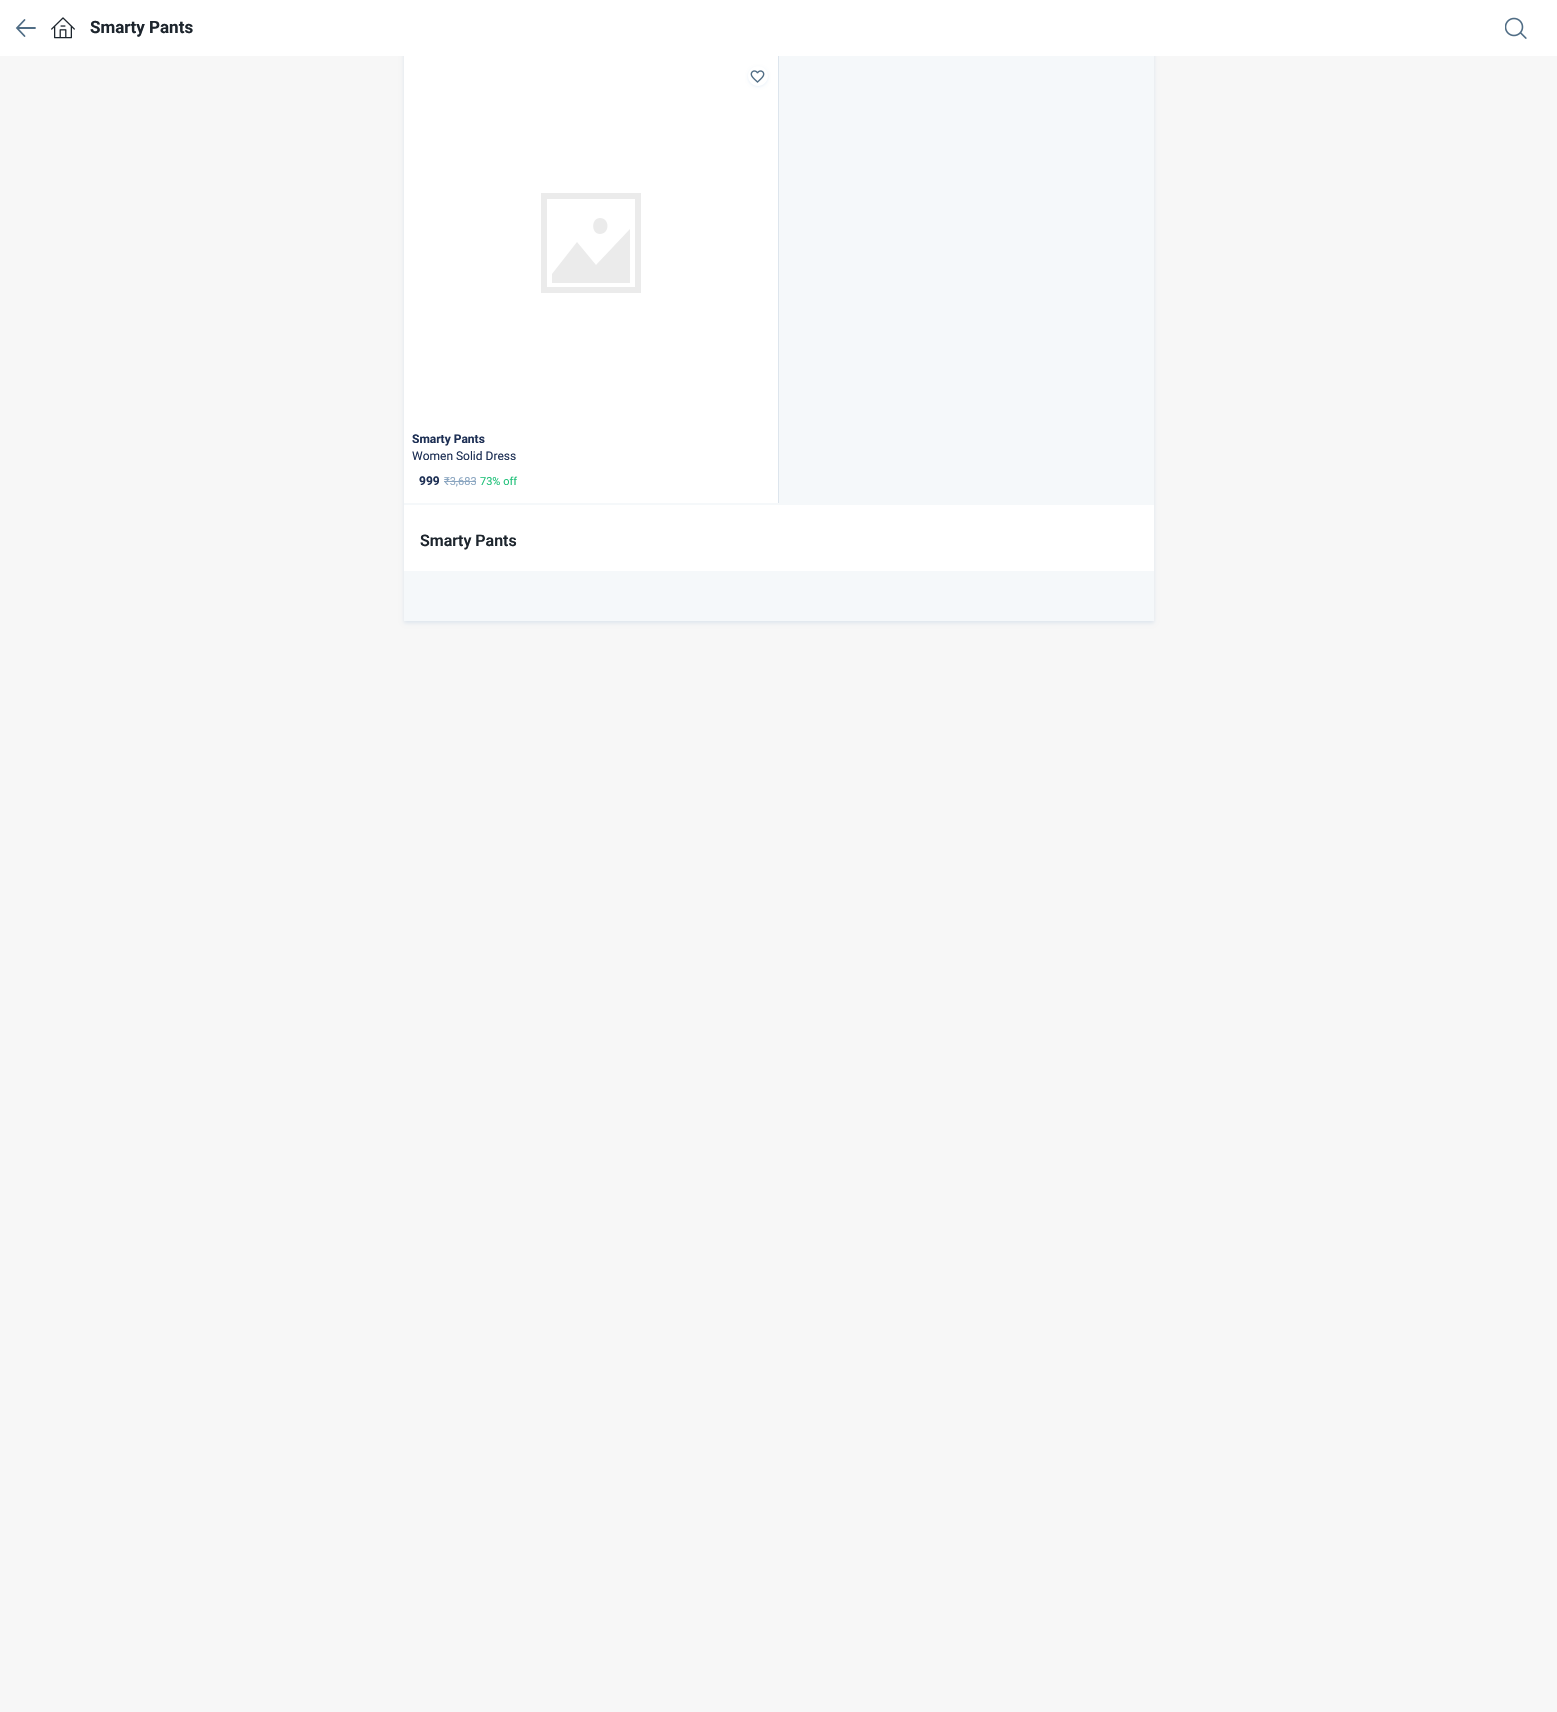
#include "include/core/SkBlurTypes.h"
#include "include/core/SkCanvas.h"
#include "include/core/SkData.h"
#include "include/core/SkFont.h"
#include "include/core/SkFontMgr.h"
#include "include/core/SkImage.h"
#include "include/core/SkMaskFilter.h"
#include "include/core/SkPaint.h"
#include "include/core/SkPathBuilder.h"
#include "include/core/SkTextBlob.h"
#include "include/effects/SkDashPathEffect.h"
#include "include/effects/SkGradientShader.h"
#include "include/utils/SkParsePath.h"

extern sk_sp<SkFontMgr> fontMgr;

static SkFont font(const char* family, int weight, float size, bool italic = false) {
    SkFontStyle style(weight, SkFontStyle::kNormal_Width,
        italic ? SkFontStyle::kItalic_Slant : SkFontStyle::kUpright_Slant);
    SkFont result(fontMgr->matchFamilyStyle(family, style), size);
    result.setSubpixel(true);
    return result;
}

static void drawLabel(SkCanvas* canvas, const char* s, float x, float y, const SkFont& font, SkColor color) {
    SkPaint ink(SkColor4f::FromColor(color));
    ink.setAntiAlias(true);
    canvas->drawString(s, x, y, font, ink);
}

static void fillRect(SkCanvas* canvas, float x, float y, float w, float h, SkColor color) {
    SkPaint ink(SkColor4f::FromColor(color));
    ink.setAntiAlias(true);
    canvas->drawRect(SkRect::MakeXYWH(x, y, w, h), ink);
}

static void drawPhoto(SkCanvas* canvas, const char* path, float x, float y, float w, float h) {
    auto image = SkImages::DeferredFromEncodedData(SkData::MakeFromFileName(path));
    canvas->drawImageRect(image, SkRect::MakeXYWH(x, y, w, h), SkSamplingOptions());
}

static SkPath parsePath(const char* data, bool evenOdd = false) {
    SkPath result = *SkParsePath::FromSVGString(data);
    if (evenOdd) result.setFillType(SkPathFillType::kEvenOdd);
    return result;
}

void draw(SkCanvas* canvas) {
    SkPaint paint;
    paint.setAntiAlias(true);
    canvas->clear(0xFFF7F7F7);
    paint.setColor(0xFFDDE5ED);
    paint.setMaskFilter(SkMaskFilter::MakeBlur(kNormal_SkBlurStyle, 2));
    canvas->drawRect(SkRect::MakeXYWH(404, 2, 750, 621), paint);
    paint.setMaskFilter(nullptr);
    fillRect(canvas, 404, 56, 750, 565, 0xFFF5F8FA);
    fillRect(canvas, 0, 0, 1557, 56, 0xFFFFFFFF);
    paint.setStroke(true);
    paint.setStrokeWidth(1.8f);
    paint.setStrokeCap(SkPaint::kRound_Cap);
    paint.setColor(0xFF506D85);
    canvas->drawPath(parsePath("M35 28H19M24.5 20L17 28L24.5 36"), paint);
    drawPhoto(canvas, "assets/img1.png", 51, 17, 24, 22);
    SkFont font1 = font("Roboto", 700, 17);
    drawLabel(canvas, "Smarty Pants", 90, 33, font1, 0xFF1D252D);
    drawPhoto(canvas, "assets/img2.png", 1505, 17, 22, 22);
    fillRect(canvas, 404, 56, 374, 447, 0xFFFFFFFF);
    fillRect(canvas, 778, 56, 1, 447, 0xFFDDE5ED);
    canvas->save();
    canvas->clipPath(parsePath("M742 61H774V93H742ZM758 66C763.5 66 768 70.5 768 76C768 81.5 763.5 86 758 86C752.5 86 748 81.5 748 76C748 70.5 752.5 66 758 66Z", true), true);
    paint.setStroke(false);
    paint.setColor(0xFFE7F0F9);
    paint.setMaskFilter(SkMaskFilter::MakeBlur(kNormal_SkBlurStyle, 1.5f));
    canvas->drawRoundRect(SkRect::MakeXYWH(748, 67, 20, 20), 10, 10, paint);
    paint.setMaskFilter(nullptr);
    canvas->restore();
    drawPhoto(canvas, "assets/img3.png", 750, 70, 15, 13);
    paint.setColor(0xFFEBEBEB);
    canvas->drawPath(parsePath("M541 293H641V193H541ZM547 287V199H635V287ZM600 234C610 234 610 218 600 218C591 218 591 234 600 234ZM630 229L596 265L577 242L552 274V283H630Z"), paint);
    SkFont font2 = font("Roboto", 700, 12);
    drawLabel(canvas, "Smarty Pants", 412, 443, font2, 0xFF1D2F54);
    SkFont font3 = font("Roboto", 400, 12);
    drawLabel(canvas, "Women Solid Dress", 412, 460, font3, 0xFF1D2F54);
    drawLabel(canvas, "999", 419, 485, font2, 0xFF1D2F54);
    SkFont font4 = font("Roboto", 400, 11);
    drawLabel(canvas, "₹3,683", 444, 485, font4, 0xFF8BA6C1);
    fillRect(canvas, 444, 481, 32, 1, 0xFF8BA6C1);
    drawLabel(canvas, "73% off", 480, 485, font4, 0xFF21C17A);
    fillRect(canvas, 404, 505, 750, 66, 0xFFFFFFFF);
    SkFont font5 = font("Roboto", 600, 16);
    drawLabel(canvas, "Smarty Pants", 420, 546, font5, 0xFF1D252D);
}
